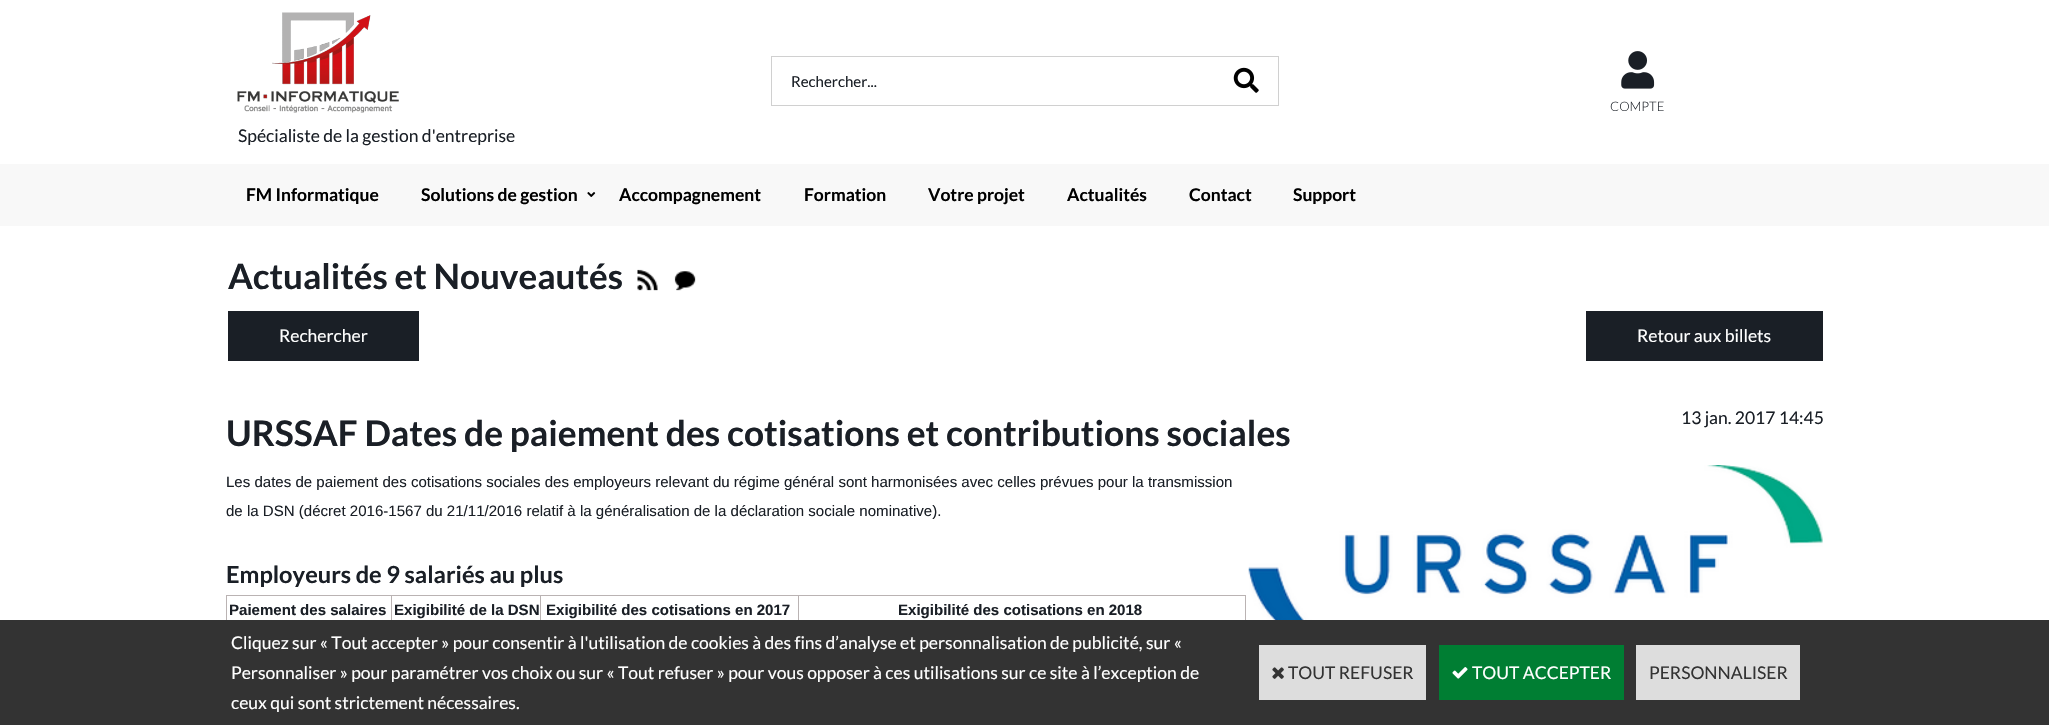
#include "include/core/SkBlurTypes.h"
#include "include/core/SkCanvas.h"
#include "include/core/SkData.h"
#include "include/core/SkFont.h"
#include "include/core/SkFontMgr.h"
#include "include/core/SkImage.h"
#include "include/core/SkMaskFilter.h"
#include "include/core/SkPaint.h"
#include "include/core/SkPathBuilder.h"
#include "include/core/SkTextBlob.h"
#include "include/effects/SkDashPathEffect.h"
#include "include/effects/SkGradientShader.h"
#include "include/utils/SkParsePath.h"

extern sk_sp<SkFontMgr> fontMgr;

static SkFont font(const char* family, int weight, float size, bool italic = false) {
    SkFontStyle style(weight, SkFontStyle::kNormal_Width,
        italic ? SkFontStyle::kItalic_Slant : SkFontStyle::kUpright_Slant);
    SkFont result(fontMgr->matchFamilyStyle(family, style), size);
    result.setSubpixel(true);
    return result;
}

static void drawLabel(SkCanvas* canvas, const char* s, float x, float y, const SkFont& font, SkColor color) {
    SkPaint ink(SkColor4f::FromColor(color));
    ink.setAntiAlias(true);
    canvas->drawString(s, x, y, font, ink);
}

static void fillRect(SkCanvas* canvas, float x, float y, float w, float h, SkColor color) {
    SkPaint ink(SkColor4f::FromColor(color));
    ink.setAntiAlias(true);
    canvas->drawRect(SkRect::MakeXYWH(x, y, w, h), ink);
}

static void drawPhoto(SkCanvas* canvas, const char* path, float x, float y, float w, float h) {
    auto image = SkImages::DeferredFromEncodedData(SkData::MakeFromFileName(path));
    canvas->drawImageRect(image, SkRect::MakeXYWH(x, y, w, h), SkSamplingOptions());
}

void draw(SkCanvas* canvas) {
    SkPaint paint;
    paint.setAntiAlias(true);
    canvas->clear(0xFFFFFFFF);
    fillRect(canvas, 771, 56, 508, 1, 0xFFD0D0D0);
    fillRect(canvas, 771, 105, 444, 1, 0xFFD0D0D0);
    fillRect(canvas, 771, 56, 1, 50, 0xFFD0D0D0);
    SkFont font1 = font("Lato", 400, 15.05f);
    drawLabel(canvas, "Rechercher...", 791, 87, font1, 0xFF1A1F26);
    fillRect(canvas, 1278, 56, 1, 50, 0xFFD0D0D0);
    fillRect(canvas, 1215, 105, 64, 1, 0xFFD0D0D0);
    drawPhoto(canvas, "assets/img1.png", 1233, 67, 26, 26);
    drawPhoto(canvas, "assets/img2.png", 1621, 51, 34, 38);
    SkFont font2 = font("Lato", 300, 13);
    drawLabel(canvas, "COMPTE", 1610, 111, font2, 0xFF1A1F26);
    drawPhoto(canvas, "assets/img3.png", 237, 12, 162, 101);
    SkFont font3 = font("Lato", 400, 17.5f);
    drawLabel(canvas, "Spécialiste de la gestion d'entreprise", 238, 142, font3, 0xFF1A1F26);
    fillRect(canvas, 0, 164, 2049, 62, 0xFFF8F8F8);
    SkFont font4 = font("Lato", 700, 17.5f);
    drawLabel(canvas, "FM Informatique", 246, 201, font4, 0xFF000000);
    drawLabel(canvas, "Solutions de gestion", 421, 201, font4, 0xFF000000);
    drawPhoto(canvas, "assets/img4.png", 587, 192, 9, 5);
    drawLabel(canvas, "Accompagnement", 619, 201, font4, 0xFF000000);
    drawLabel(canvas, "Formation", 804, 201, font4, 0xFF000000);
    drawLabel(canvas, "Votre projet", 928, 201, font4, 0xFF000000);
    drawLabel(canvas, "Actualités", 1067, 201, font4, 0xFF000000);
    drawLabel(canvas, "Contact", 1189, 201, font4, 0xFF000000);
    drawLabel(canvas, "Support", 1293, 201, font4, 0xFF000000);
    SkFont font5 = font("Lato", 700, 35);
    drawLabel(canvas, "Actualités et Nouveautés", 228, 289, font5, 0xFF1A1F26);
    drawPhoto(canvas, "assets/img5.png", 637, 269, 21, 22);
    drawPhoto(canvas, "assets/img6.png", 674, 271, 22, 20);
    fillRect(canvas, 228, 311, 191, 50, 0xFF1A1F26);
    drawLabel(canvas, "Rechercher", 279, 342, font3, 0xFFFFFFFF);
    fillRect(canvas, 1586, 311, 237, 50, 0xFF1A1F26);
    drawLabel(canvas, "Retour aux billets", 1637, 342, font3, 0xFFFFFFFF);
    SkFont font6 = font("Lato", 700, 35.3f);
    drawLabel(canvas, "URSSAF Dates de paiement des cotisations et contributions sociales", 226, 446, font6, 0xFF1A1F26);
    drawLabel(canvas, "13 jan. 2017 14:45", 1681, 424, font3, 0xFF1A1F26);
    SkFont font7 = font("Liberation Sans", 400, 15.05f);
    drawLabel(canvas, "Les dates de paiement des cotisations sociales des employeurs relevant du régime général sont harmonisées avec celles prévues pour la transmission", 226, 487, font7, 0xFF1A1F26);
    drawLabel(canvas, "de la DSN (décret 2016-1567 du 21/11/2016 relatif à la généralisation de la déclaration sociale nominative).", 226, 516, font7, 0xFF1A1F26);
    SkFont font8 = font("Lato", 700, 23.6f);
    drawLabel(canvas, "Employeurs de 9 salariés au plus", 226, 583, font8, 0xFF1A1F26);
    fillRect(canvas, 798, 595, 448, 1, 0xFFBAB3B3);
    fillRect(canvas, 798, 595, 1, 30, 0xFFBAB3B3);
    fillRect(canvas, 540, 595, 259, 1, 0xFFBAB3B3);
    fillRect(canvas, 540, 595, 1, 30, 0xFFBAB3B3);
    fillRect(canvas, 391, 595, 150, 1, 0xFFBAB3B3);
    fillRect(canvas, 391, 595, 1, 30, 0xFFBAB3B3);
    fillRect(canvas, 226, 595, 167, 1, 0xFFBAB3B3);
    fillRect(canvas, 226, 595, 1, 30, 0xFFBAB3B3);
    SkFont font9 = font("Liberation Sans", 700, 15.05f);
    drawLabel(canvas, "Paiement des salaires", 229, 615, font9, 0xFF1A1F26);
    drawLabel(canvas, "Exigibilité de la DSN", 394, 615, font9, 0xFF1A1F26);
    drawLabel(canvas, "Exigibilité des cotisations en 2017", 546, 615, font9, 0xFF1A1F26);
    fillRect(canvas, 1245, 595, 1, 30, 0xFFBAB3B3);
    drawLabel(canvas, "Exigibilité des cotisations en 2018", 898, 615, font9, 0xFF1A1F26);
    drawPhoto(canvas, "assets/img7.png", 1248, 465, 575, 155);
    fillRect(canvas, 0, 620, 2049, 105, 0xFF333333);
    drawLabel(canvas, "Cliquez sur « Tout accepter » pour consentir à l'utilisation de cookies à des fins d’analyse et personnalisation de publicité, sur «", 231, 649, font3, 0xFFFFFFFF);
    drawLabel(canvas, "Personnaliser » pour paramétrer vos choix ou sur « Tout refuser » pour vous opposer à ces utilisations sur ce site à l’exception de", 231, 679, font3, 0xFFFFFFFF);
    drawLabel(canvas, "ceux qui sont strictement nécessaires.", 231, 709, font3, 0xFFFFFFFF);
    fillRect(canvas, 1259, 645, 167, 55, 0xFFDDDDDD);
    drawPhoto(canvas, "assets/img8.png", 1272, 667, 12, 12);
    drawLabel(canvas, "TOUT REFUSER", 1288, 679, font3, 0xFF333333);
    fillRect(canvas, 1439, 645, 185, 55, 0xFF007E33);
    drawPhoto(canvas, "assets/img9.png", 1452, 667, 16, 12);
    drawLabel(canvas, "TOUT ACCEPTER", 1472, 679, font3, 0xFFFFFFFF);
    fillRect(canvas, 1636, 645, 164, 55, 0xFFDDDDDD);
    drawLabel(canvas, "PERSONNALISER", 1649, 679, font3, 0xFF333333);
}
